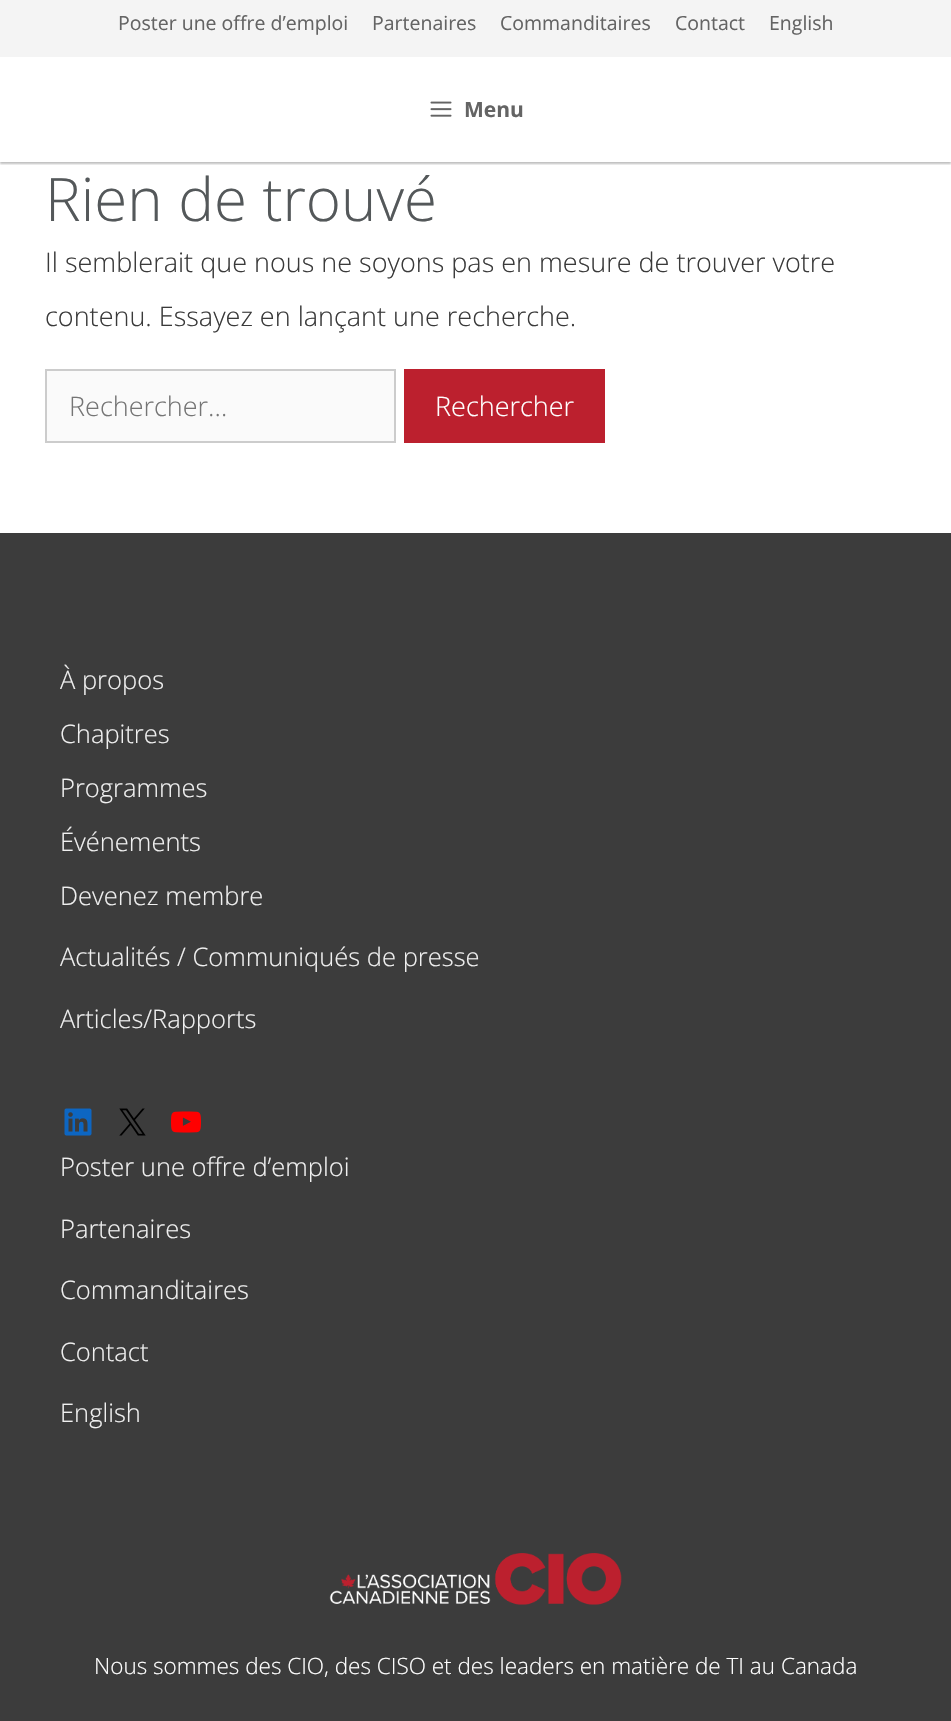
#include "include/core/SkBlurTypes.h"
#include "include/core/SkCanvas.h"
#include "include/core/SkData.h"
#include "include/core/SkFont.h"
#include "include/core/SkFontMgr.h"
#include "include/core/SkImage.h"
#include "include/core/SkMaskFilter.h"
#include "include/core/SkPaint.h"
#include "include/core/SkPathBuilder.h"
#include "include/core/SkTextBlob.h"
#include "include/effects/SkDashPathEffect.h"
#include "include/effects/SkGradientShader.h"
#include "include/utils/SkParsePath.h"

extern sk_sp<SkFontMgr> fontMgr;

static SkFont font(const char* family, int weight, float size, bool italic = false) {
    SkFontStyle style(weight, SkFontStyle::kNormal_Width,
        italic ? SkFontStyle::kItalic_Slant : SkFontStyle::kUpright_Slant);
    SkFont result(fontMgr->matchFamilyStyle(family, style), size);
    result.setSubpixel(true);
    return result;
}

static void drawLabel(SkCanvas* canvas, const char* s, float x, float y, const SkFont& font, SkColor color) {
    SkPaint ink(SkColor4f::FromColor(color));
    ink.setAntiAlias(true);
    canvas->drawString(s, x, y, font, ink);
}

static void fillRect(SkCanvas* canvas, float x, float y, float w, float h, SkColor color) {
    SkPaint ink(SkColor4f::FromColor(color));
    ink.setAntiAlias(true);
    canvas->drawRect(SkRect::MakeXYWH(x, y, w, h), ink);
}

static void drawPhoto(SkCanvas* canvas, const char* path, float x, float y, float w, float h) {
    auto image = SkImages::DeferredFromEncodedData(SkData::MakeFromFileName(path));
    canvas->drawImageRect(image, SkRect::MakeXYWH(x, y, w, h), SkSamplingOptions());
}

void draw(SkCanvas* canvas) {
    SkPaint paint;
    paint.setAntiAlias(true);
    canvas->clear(0xFFFFFFFF);
    fillRect(canvas, 0, 0, 951, 57, 0xFFF4F4F4);
    SkFont font1 = font("Open Sans", 400, 19.5f);
    drawLabel(canvas, "Poster une offre d’emploi", 118, 30, font1, 0xFF646464);
    drawLabel(canvas, "Partenaires", 372, 30, font1, 0xFF646464);
    drawLabel(canvas, "Commanditaires", 500, 30, font1, 0xFF646464);
    drawLabel(canvas, "Contact", 675, 30, font1, 0xFF646464);
    drawLabel(canvas, "English", 769, 30, font1, 0xFF646464);
    canvas->save();
    canvas->clipRect(SkRect::MakeXYWH(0, 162, 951, 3));
    paint.setColor(0x40000000);
    paint.setMaskFilter(SkMaskFilter::MakeBlur(kNormal_SkBlurStyle, 1));
    canvas->drawRect(SkRect::MakeXYWH(0, 59, 951, 105), paint);
    paint.setMaskFilter(nullptr);
    canvas->restore();
    drawPhoto(canvas, "assets/img1.png", 430, 101, 22, 16);
    SkFont font2 = font("Open Sans", 700, 21);
    drawLabel(canvas, "Menu", 464, 117, font2, 0xFF646464);
    SkFont font3 = font("Open Sans", 300, 60);
    drawLabel(canvas, "Rien de trouvé", 45, 221, font3, 0xFF54585A);
    SkFont font4 = font("Open Sans", 300, 27);
    drawLabel(canvas, "Il semblerait que nous ne soyons pas en mesure de trouver votre", 45, 272, font4, 0xFF3A3A3A);
    drawLabel(canvas, "contenu. Essayez en lançant une recherche.", 45, 326, font4, 0xFF3A3A3A);
    paint.setColor(0xFFFAFAFA);
    canvas->drawRect(SkRect::MakeXYWH(46, 370, 349, 72), paint);
    paint.setStroke(true);
    paint.setStrokeWidth(2);
    paint.setColor(0xFFCCCCCC);
    canvas->drawRect(SkRect::MakeXYWH(46, 370, 349, 72), paint);
    drawLabel(canvas, "Rechercher…", 69, 416, font4, 0xFF757575);
    fillRect(canvas, 404, 369, 201, 74, 0xFFBC202E);
    drawLabel(canvas, "Rechercher", 435, 416, font4, 0xFFFFFFFF);
    fillRect(canvas, 0, 533, 951, 1188, 0xFF3C3C3C);
    SkFont font5 = font("Open Sans", 300, 25.5f);
    drawLabel(canvas, "À propos", 60, 689, font5, 0xFFF0F0F0);
    drawLabel(canvas, "Chapitres", 60, 743, font5, 0xFFF0F0F0);
    drawLabel(canvas, "Programmes", 60, 797, font5, 0xFFF0F0F0);
    drawLabel(canvas, "Événements", 60, 851, font5, 0xFFF0F0F0);
    drawLabel(canvas, "Devenez membre", 60, 905, font5, 0xFFF0F0F0);
    drawLabel(canvas, "Actualités / Communiqués de presse", 60, 966, font5, 0xFFF0F0F0);
    drawLabel(canvas, "Articles/Rapports", 60, 1028, font5, 0xFFF0F0F0);
    drawPhoto(canvas, "assets/img2.png", 64, 1108, 28, 28);
    drawPhoto(canvas, "assets/img3.png", 119, 1108, 27, 28);
    drawPhoto(canvas, "assets/img4.png", 171, 1111, 30, 22);
    drawLabel(canvas, "Poster une offre d’emploi", 60, 1176, font5, 0xFFF0F0F0);
    drawLabel(canvas, "Partenaires", 60, 1238, font5, 0xFFF0F0F0);
    drawLabel(canvas, "Commanditaires", 60, 1299, font5, 0xFFF0F0F0);
    drawLabel(canvas, "Contact", 60, 1361, font5, 0xFFF0F0F0);
    drawLabel(canvas, "English", 60, 1422, font5, 0xFFF0F0F0);
    drawPhoto(canvas, "assets/img5.png", 329, 1553, 293, 52);
    SkFont font6 = font("Open Sans", 300, 22.5f);
    drawLabel(canvas, "Nous sommes des CIO, des CISO et des leaders en matière de TI au Canada", 94, 1674, font6, 0xFFFFFFFF);
}
